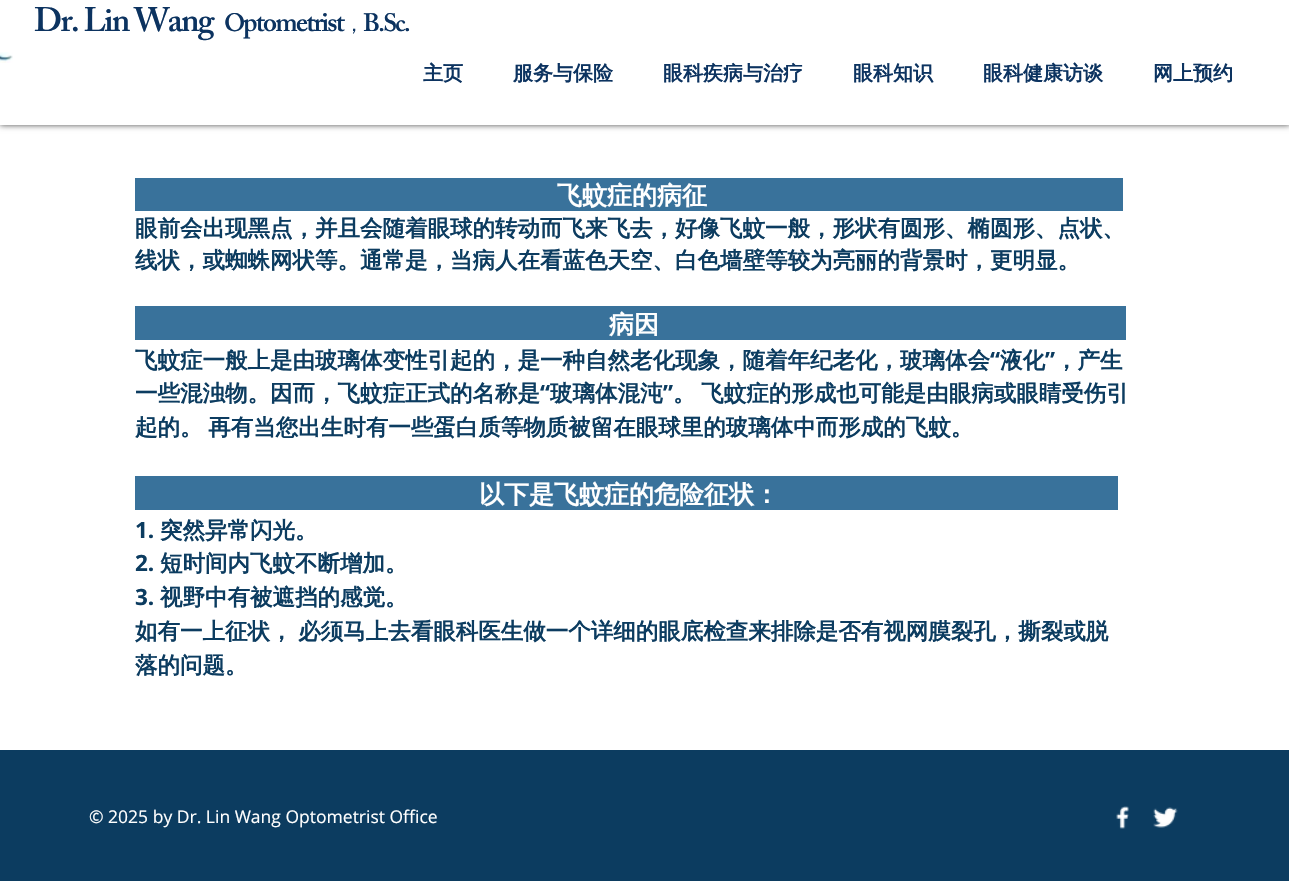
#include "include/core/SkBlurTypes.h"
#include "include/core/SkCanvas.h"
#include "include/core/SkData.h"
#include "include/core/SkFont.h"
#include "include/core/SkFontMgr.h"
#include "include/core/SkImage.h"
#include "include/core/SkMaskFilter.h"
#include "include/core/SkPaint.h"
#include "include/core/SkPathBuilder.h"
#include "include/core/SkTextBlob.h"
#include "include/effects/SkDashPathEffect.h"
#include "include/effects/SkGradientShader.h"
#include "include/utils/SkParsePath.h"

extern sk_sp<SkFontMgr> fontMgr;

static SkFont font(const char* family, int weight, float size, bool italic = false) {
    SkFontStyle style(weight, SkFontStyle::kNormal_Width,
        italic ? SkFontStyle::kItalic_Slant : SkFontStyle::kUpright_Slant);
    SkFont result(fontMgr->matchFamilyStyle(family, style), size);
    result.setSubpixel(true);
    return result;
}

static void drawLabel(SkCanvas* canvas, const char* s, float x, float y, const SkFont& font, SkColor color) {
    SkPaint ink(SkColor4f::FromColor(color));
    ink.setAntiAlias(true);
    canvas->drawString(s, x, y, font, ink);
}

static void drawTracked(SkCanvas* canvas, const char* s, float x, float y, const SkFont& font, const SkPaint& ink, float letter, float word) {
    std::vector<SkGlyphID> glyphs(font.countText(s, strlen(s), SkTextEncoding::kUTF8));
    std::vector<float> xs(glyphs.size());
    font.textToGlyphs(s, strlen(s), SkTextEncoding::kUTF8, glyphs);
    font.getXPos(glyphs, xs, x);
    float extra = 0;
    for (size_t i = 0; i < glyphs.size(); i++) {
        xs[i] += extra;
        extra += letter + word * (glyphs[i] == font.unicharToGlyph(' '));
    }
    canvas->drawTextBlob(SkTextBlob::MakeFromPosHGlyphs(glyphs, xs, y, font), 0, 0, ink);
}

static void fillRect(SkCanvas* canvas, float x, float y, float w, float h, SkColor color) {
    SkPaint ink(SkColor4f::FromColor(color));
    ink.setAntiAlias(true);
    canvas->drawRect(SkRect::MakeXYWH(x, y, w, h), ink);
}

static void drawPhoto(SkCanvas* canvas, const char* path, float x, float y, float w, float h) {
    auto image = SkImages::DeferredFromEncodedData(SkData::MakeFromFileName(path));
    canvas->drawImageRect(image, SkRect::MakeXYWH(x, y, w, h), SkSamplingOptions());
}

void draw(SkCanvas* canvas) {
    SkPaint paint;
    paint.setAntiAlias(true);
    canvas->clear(0xFFFFFFFF);
    paint.setColor(0xB3000000);
    paint.setMaskFilter(SkMaskFilter::MakeBlur(kNormal_SkBlurStyle, 3));
    canvas->drawRect(SkRect::MakeXYWH(0, 0, 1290, 125), paint);
    paint.setMaskFilter(nullptr);
    fillRect(canvas, 0, 0, 1289, 125, 0xFFFFFFFF);
    SkFont font1 = font("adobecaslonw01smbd", 600, 33.75f);
    paint.setColor(0xFF0C3360);
    drawTracked(canvas, "Dr. Lin Wang", 34, 31, font1, paint, -1.75f, 0);
    SkFont font2 = font("adobecaslonw01smbd", 600, 25);
    drawTracked(canvas, "O", 224, 31, font2, paint, -1.75f, 0);
    SkFont font3 = font("adobecaslonw01smbd", 600, 27.5f);
    drawTracked(canvas, "ptometrist", 243, 31, font3, paint, -1.75f, 0);
    SkFont font4 = font("WenQuanYi Zen Hei", 500, 20);
    drawTracked(canvas, "，", 344, 31, font4, paint, -1.75f, 0);
    drawTracked(canvas, "B.Sc.", 363, 31, font2, paint, -1.75f, 0);
    drawPhoto(canvas, "assets/img1.png", 0, 52, 13, 11);
    SkFont font5 = font("WenQuanYi Zen Hei", 700, 20);
    drawLabel(canvas, "主页", 423, 80, font5, 0xFF0C3360);
    drawLabel(canvas, "服务与保险", 513, 80, font5, 0xFF0C3360);
    drawLabel(canvas, "眼科疾病与治疗", 663, 80, font5, 0xFF0C3360);
    drawLabel(canvas, "眼科知识", 853, 80, font5, 0xFF0C3360);
    drawLabel(canvas, "眼科健康访谈", 983, 80, font5, 0xFF0C3360);
    drawLabel(canvas, "网上预约", 1153, 80, font5, 0xFF0C3360);
    fillRect(canvas, 135, 178, 988, 33, 0xFF39729B);
    SkFont font6 = font("WenQuanYi Zen Hei", 700, 25);
    drawLabel(canvas, "飞蚊症的病征", 557, 204, font6, 0xFFFFFFFF);
    SkFont font7 = font("WenQuanYi Zen Hei", 700, 22.5f);
    drawLabel(canvas, "眼前会出现黑点，并且会随着眼球的转动而飞来飞去，好像飞蚊一般，形状有圆形、椭圆形、点状、", 135, 236, font7, 0xFF0C3C60);
    drawLabel(canvas, "线状，或蜘蛛网状等。通常是，当病人在看蓝色天空、白色墙壁等较为亮丽的背景时，更明显。", 135, 268, font7, 0xFF0C3C60);
    fillRect(canvas, 135, 306, 991, 34, 0xFF39729B);
    drawLabel(canvas, "病因", 609, 333, font6, 0xFFFFFFFF);
    drawLabel(canvas, "飞蚊症一般上是由玻璃体变性引起的，是一种自然老化现象，随着年纪老化，玻璃体会", 135, 368, font7, 0xFF0C3C60);
    SkFont font8 = font("Open Sans", 700, 22.5f);
    drawLabel(canvas, "“", 990, 368, font8, 0xFF0C3C60);
    drawLabel(canvas, "液化", 1000, 368, font7, 0xFF0C3C60);
    drawLabel(canvas, "”", 1045, 368, font8, 0xFF0C3C60);
    drawLabel(canvas, "，产生", 1055, 368, font7, 0xFF0C3C60);
    drawLabel(canvas, "一些混浊物。因而，飞蚊症正式的名称是", 135, 401, font7, 0xFF0C3C60);
    drawLabel(canvas, "“", 540, 401, font8, 0xFF0C3C60);
    drawLabel(canvas, "玻璃体混沌", 550, 401, font7, 0xFF0C3C60);
    drawLabel(canvas, "”", 663, 401, font8, 0xFF0C3C60);
    paint.setColor(0xFF0C3C60);
    drawTracked(canvas, "。 飞蚊症的形成也可能是由眼病或眼睛受伤引", 673, 401, font7, paint, 0, -1);
    drawTracked(canvas, "起的。 再有当您出生时有一些蛋白质等物质被留在眼球里的玻璃体中而形成的飞蚊。", 135, 435, font7, paint, 0, -1);
    fillRect(canvas, 135, 476, 983, 34, 0xFF39729B);
    drawLabel(canvas, "以下是飞蚊症的危险征状：", 479, 503, font6, 0xFFFFFFFF);
    drawLabel(canvas, "1.", 135, 538, font8, 0xFF0C3C60);
    drawLabel(canvas, "突然异常闪光。", 160, 538, font7, 0xFF0C3C60);
    drawLabel(canvas, "2.", 135, 571, font8, 0xFF0C3C60);
    drawLabel(canvas, "短时间内飞蚊不断增加。", 160, 571, font7, 0xFF0C3C60);
    drawLabel(canvas, "3.", 135, 605, font8, 0xFF0C3C60);
    drawLabel(canvas, "视野中有被遮挡的感觉。", 160, 605, font7, 0xFF0C3C60);
    drawTracked(canvas, "如有一上征状， 必须马上去看眼科医生做一个详细的眼底检查来排除是否有视网膜裂孔，撕裂或脱", 135, 639, font7, paint, 0, -1);
    drawLabel(canvas, "落的问题。", 135, 673, font7, 0xFF0C3C60);
    fillRect(canvas, 0, 750, 1289, 131, 0xFF0C3C60);
    SkFont font9 = font("Open Sans", 400, 17.5f);
    drawLabel(canvas, "© 2025 by Dr. Lin Wang Optometrist Office", 89, 823, font9, 0xFFFFFFFF);
    drawPhoto(canvas, "assets/img2.png", 1116, 806, 13, 23);
    drawPhoto(canvas, "assets/img3.png", 1153, 807, 25, 21);
}
